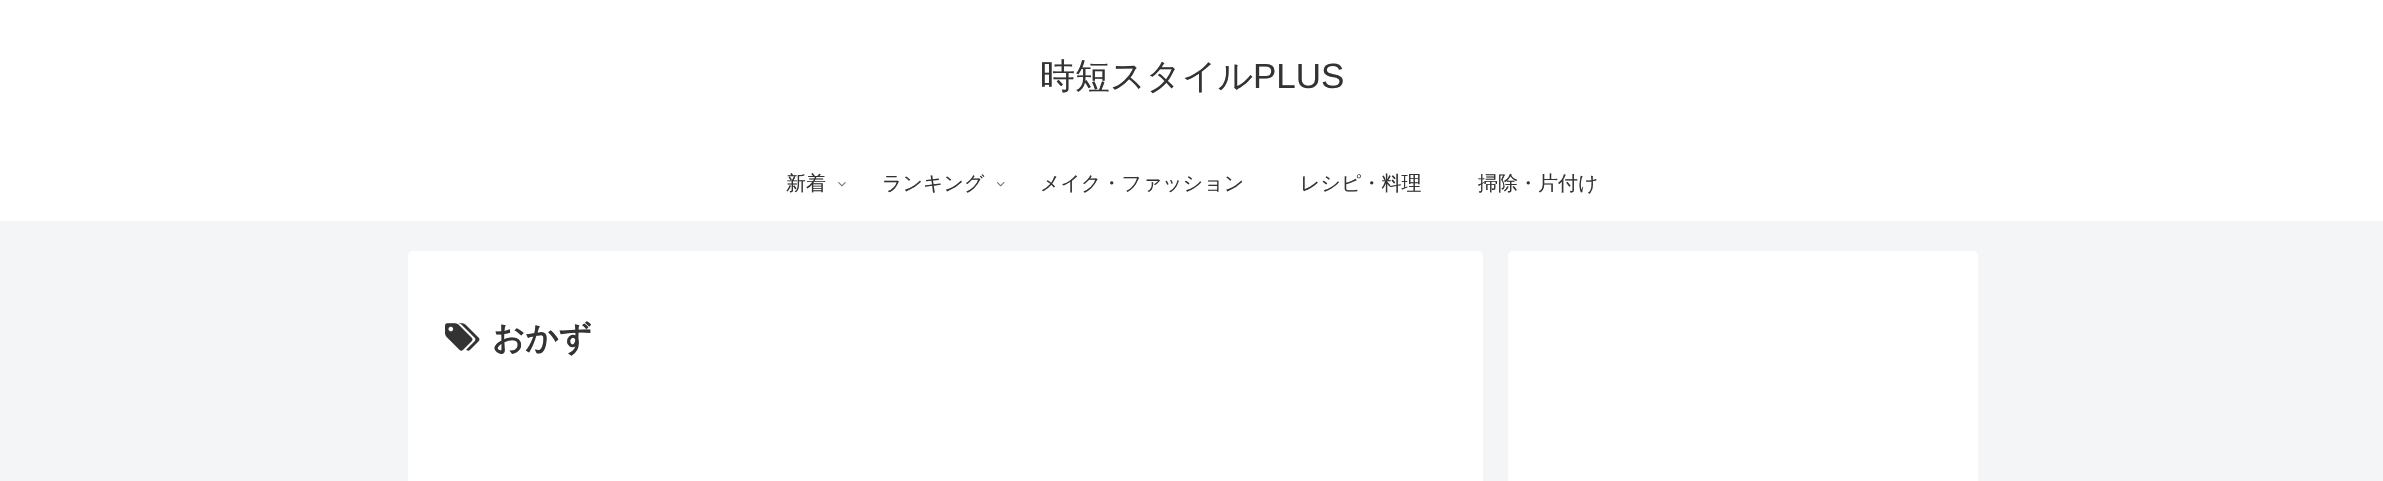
#include "include/core/SkBlurTypes.h"
#include "include/core/SkCanvas.h"
#include "include/core/SkData.h"
#include "include/core/SkFont.h"
#include "include/core/SkFontMgr.h"
#include "include/core/SkImage.h"
#include "include/core/SkMaskFilter.h"
#include "include/core/SkPaint.h"
#include "include/core/SkPathBuilder.h"
#include "include/core/SkTextBlob.h"
#include "include/effects/SkDashPathEffect.h"
#include "include/effects/SkGradientShader.h"
#include "include/utils/SkParsePath.h"

extern sk_sp<SkFontMgr> fontMgr;

static SkFont font(const char* family, int weight, float size, bool italic = false) {
    SkFontStyle style(weight, SkFontStyle::kNormal_Width,
        italic ? SkFontStyle::kItalic_Slant : SkFontStyle::kUpright_Slant);
    SkFont result(fontMgr->matchFamilyStyle(family, style), size);
    result.setSubpixel(true);
    return result;
}

static void drawLabel(SkCanvas* canvas, const char* s, float x, float y, const SkFont& font, SkColor color) {
    SkPaint ink(SkColor4f::FromColor(color));
    ink.setAntiAlias(true);
    canvas->drawString(s, x, y, font, ink);
}

static void fillRect(SkCanvas* canvas, float x, float y, float w, float h, SkColor color) {
    SkPaint ink(SkColor4f::FromColor(color));
    ink.setAntiAlias(true);
    canvas->drawRect(SkRect::MakeXYWH(x, y, w, h), ink);
}

static void fillRRect(SkCanvas* canvas, float x, float y, float w, float h, float radius, SkColor color) {
    SkPaint ink(SkColor4f::FromColor(color));
    ink.setAntiAlias(true);
    canvas->drawRoundRect(SkRect::MakeXYWH(x, y, w, h), radius, radius, ink);
}

static void drawPhoto(SkCanvas* canvas, const char* path, float x, float y, float w, float h) {
    auto image = SkImages::DeferredFromEncodedData(SkData::MakeFromFileName(path));
    canvas->drawImageRect(image, SkRect::MakeXYWH(x, y, w, h), SkSamplingOptions());
}

void draw(SkCanvas* canvas) {
    SkPaint paint;
    paint.setAntiAlias(true);
    canvas->clear(0xFFF4F5F7);
    fillRect(canvas, 0, 0, 2383, 221, 0xFFFFFFFF);
    SkFont font1 = font("WenQuanYi Zen Hei", 500, 35);
    drawLabel(canvas, "時短スタイル", 1040, 88, font1, 0xFF333333);
    SkFont font2 = font("Liberation Sans", 400, 35);
    drawLabel(canvas, "PLUS", 1253, 88, font2, 0xFF333333);
    SkFont font3 = font("WenQuanYi Zen Hei", 500, 20);
    drawLabel(canvas, "新着", 786, 190, font3, 0xFF333333);
    drawPhoto(canvas, "assets/img1.png", 838, 182, 8, 5);
    drawLabel(canvas, "ランキング", 882, 190, font3, 0xFF333333);
    drawPhoto(canvas, "assets/img2.png", 996, 182, 9, 5);
    drawLabel(canvas, "メイク・ファッション", 1040, 190, font3, 0xFF333333);
    drawLabel(canvas, "レシピ・料理", 1300, 190, font3, 0xFF333333);
    drawLabel(canvas, "掃除・片付け", 1478, 190, font3, 0xFF333333);
    fillRRect(canvas, 408, 251, 1075, 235, 5, 0xFFFFFFFF);
    drawPhoto(canvas, "assets/img3.png", 445, 323, 35, 28);
    SkFont font4 = font("WenQuanYi Zen Hei", 700, 32.5f);
    drawLabel(canvas, "おかず", 492, 349, font4, 0xFF333333);
    fillRRect(canvas, 1508, 251, 470, 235, 5, 0xFFFFFFFF);
}
